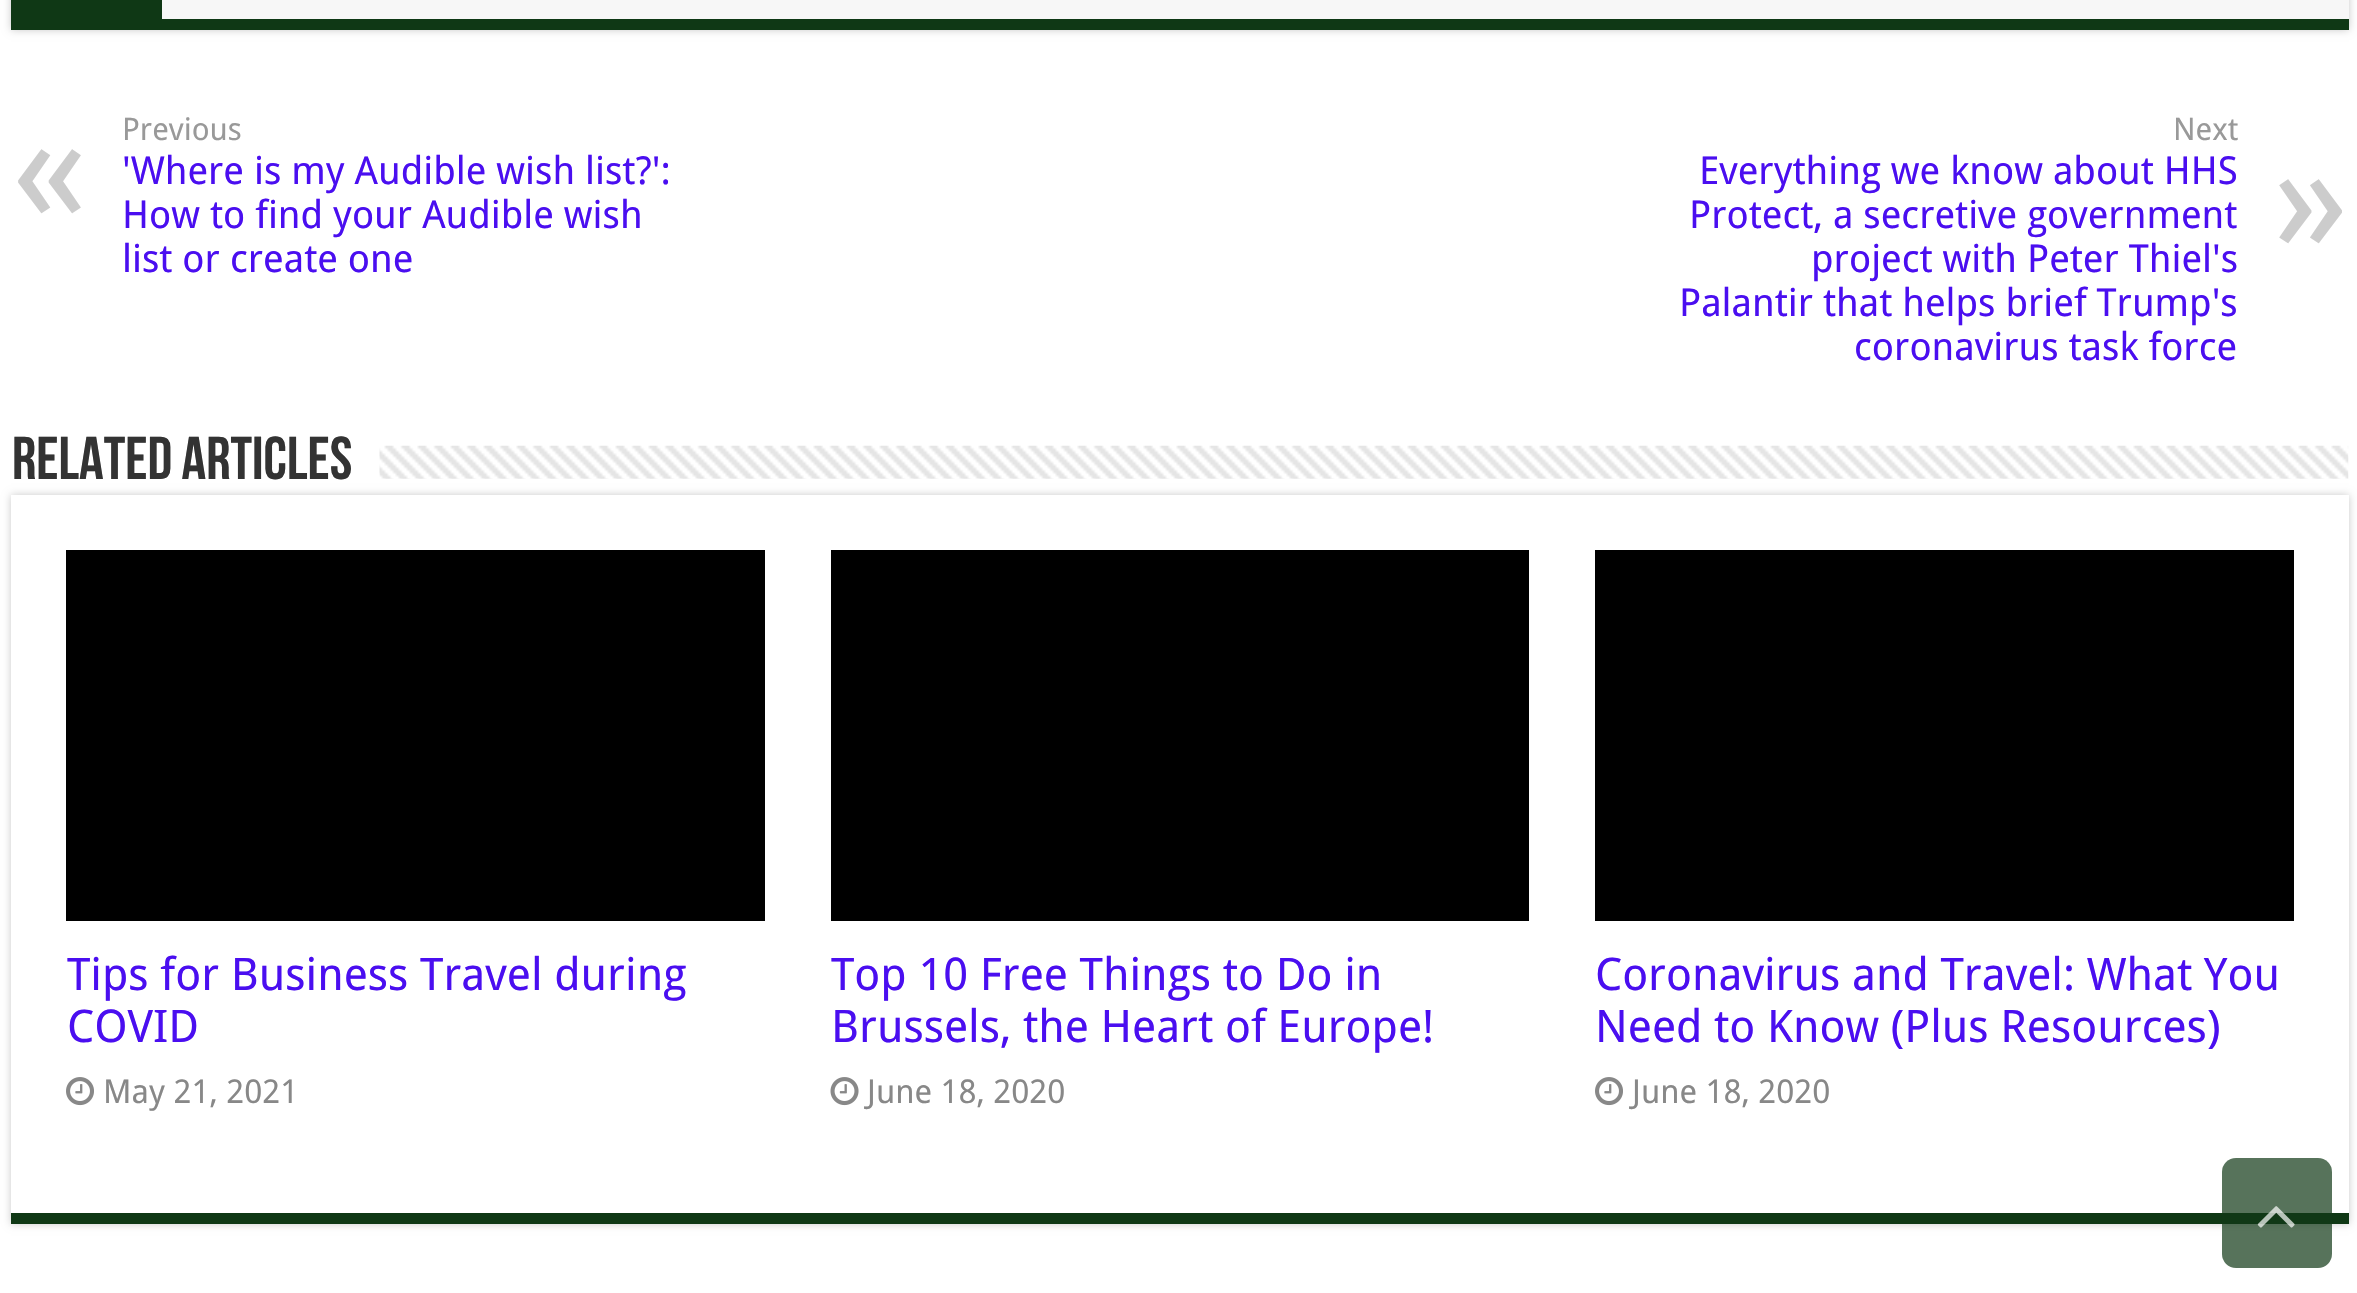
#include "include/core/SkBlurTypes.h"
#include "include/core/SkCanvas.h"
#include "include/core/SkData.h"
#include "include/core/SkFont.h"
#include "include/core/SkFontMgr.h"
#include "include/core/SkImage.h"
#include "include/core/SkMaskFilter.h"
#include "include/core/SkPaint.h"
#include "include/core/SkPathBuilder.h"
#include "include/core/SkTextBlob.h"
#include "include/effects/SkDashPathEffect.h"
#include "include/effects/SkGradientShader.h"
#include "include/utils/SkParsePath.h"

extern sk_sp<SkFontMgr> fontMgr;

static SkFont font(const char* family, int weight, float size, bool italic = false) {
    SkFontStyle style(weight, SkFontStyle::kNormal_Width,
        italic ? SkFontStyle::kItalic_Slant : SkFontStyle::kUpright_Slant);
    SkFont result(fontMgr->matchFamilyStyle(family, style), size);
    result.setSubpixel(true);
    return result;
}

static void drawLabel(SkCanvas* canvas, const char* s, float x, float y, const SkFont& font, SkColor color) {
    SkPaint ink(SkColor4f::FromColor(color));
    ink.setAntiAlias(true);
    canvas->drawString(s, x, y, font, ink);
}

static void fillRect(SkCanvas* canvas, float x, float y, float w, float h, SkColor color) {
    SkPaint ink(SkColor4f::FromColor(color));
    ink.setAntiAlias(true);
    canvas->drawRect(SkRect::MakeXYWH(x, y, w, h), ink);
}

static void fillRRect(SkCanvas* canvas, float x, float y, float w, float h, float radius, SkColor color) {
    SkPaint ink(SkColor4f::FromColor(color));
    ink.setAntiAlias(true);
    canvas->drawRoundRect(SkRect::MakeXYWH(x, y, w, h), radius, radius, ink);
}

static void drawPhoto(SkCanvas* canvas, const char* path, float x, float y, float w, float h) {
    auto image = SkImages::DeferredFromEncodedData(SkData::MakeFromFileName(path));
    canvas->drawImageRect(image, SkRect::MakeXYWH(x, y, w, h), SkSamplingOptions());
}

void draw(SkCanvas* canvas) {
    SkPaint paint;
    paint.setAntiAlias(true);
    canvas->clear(0xFFFFFFFF);
    paint.setColor(0xFFCACACA);
    paint.setMaskFilter(SkMaskFilter::MakeBlur(kNormal_SkBlurStyle, 4));
    canvas->drawRect(SkRect::MakeXYWH(11, -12, 2338, 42), paint);
    paint.setMaskFilter(nullptr);
    fillRect(canvas, 11, 19, 2338, 11, 0xFF0F3815);
    fillRect(canvas, 162, 0, 2187, 19, 0xFFF7F7F7);
    fillRect(canvas, 11, 0, 151, 19, 0xFF0F3815);
    SkFont font1 = font("Droid Sans", 400, 31);
    drawLabel(canvas, "Previous", 122, 140, font1, 0xFF999999);
    SkFont font2 = font("Droid Sans", 400, 154);
    drawLabel(canvas, "«", 12, 222, font2, 0xFFCCCCCC);
    SkFont font3 = font("Droid Sans", 400, 38.5f);
    drawLabel(canvas, "'Where is my Audible wish list?':", 122, 184, font3, 0xFF4A0EF0);
    drawLabel(canvas, "How to find your Audible wish", 122, 228, font3, 0xFF4A0EF0);
    drawLabel(canvas, "list or create one", 122, 272, font3, 0xFF4A0EF0);
    drawLabel(canvas, "Next", 2173, 140, font1, 0xFF999999);
    drawLabel(canvas, "Everything we know about HHS", 1699, 184, font3, 0xFF4A0EF0);
    drawLabel(canvas, "Protect, a secretive government", 1689, 228, font3, 0xFF4A0EF0);
    drawLabel(canvas, "»", 2273, 252, font2, 0xFFCCCCCC);
    drawLabel(canvas, "project with Peter Thiel's", 1811, 272, font3, 0xFF4A0EF0);
    drawLabel(canvas, "Palantir that helps brief Trump's", 1679, 316, font3, 0xFF4A0EF0);
    drawLabel(canvas, "coronavirus task force", 1854, 360, font3, 0xFF4A0EF0);
    SkFont font4 = font("Bebas Neue", 700, 60.5f);
    drawLabel(canvas, "Related Articles", 12, 479, font4, 0xFF333333);
    drawPhoto(canvas, "assets/img1.png", 379, 445, 1970, 34);
    paint.setMaskFilter(SkMaskFilter::MakeBlur(kNormal_SkBlurStyle, 4));
    canvas->drawRect(SkRect::MakeXYWH(11, 495, 2338, 729), paint);
    paint.setMaskFilter(nullptr);
    fillRect(canvas, 11, 495, 2338, 718, 0xFFFFFFFF);
    fillRect(canvas, 11, 1213, 2338, 11, 0xFF0F3815);
    fillRect(canvas, 66, 550, 699, 371, 0xFF000000);
    SkFont font5 = font("Droid Sans", 400, 45);
    drawLabel(canvas, "Tips for Business Travel during", 67, 990, font5, 0xFF4A0EF0);
    drawLabel(canvas, "COVID", 67, 1042, font5, 0xFF4A0EF0);
    drawPhoto(canvas, "assets/img2.png", 66, 1077, 28, 29);
    SkFont font6 = font("Droid Sans", 400, 32.75f);
    drawLabel(canvas, "May 21, 2021", 103, 1103, font6, 0xFF888888);
    fillRect(canvas, 831, 550, 698, 371, 0xFF000000);
    drawLabel(canvas, "Top 10 Free Things to Do in", 831, 990, font5, 0xFF4A0EF0);
    drawLabel(canvas, "Brussels, the Heart of Europe!", 831, 1042, font5, 0xFF4A0EF0);
    drawPhoto(canvas, "assets/img3.png", 830, 1077, 29, 29);
    drawLabel(canvas, "June 18, 2020", 867, 1103, font6, 0xFF888888);
    fillRect(canvas, 1595, 550, 699, 371, 0xFF000000);
    drawLabel(canvas, "Coronavirus and Travel: What You", 1595, 990, font5, 0xFF4A0EF0);
    drawLabel(canvas, "Need to Know (Plus Resources)", 1595, 1042, font5, 0xFF4A0EF0);
    drawPhoto(canvas, "assets/img2.png", 1595, 1077, 28, 29);
    drawLabel(canvas, "June 18, 2020", 1632, 1103, font6, 0xFF888888);
    fillRRect(canvas, 2222, 1158, 110, 110, 14, 0xB30F3815);
    drawPhoto(canvas, "assets/img4.png", 2257, 1206, 38, 22);
}
